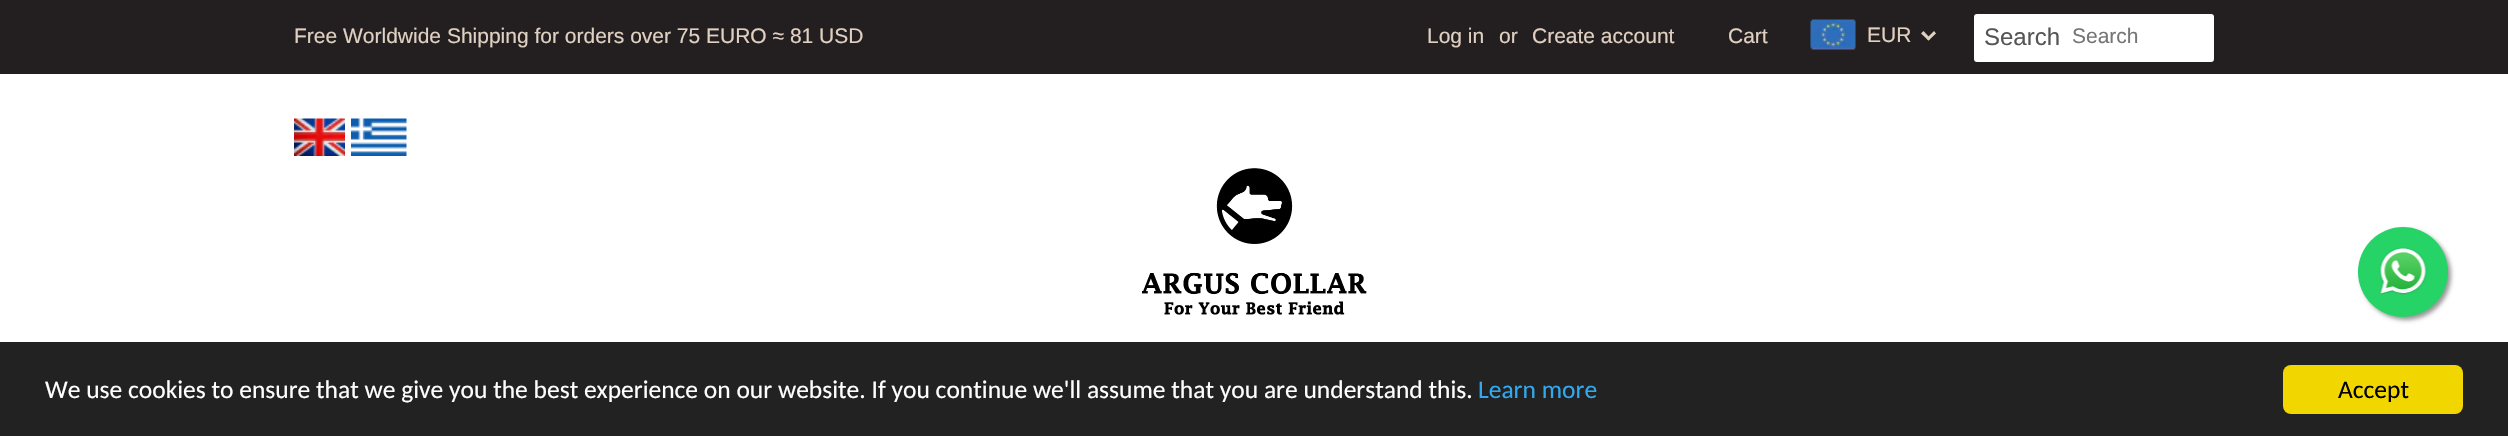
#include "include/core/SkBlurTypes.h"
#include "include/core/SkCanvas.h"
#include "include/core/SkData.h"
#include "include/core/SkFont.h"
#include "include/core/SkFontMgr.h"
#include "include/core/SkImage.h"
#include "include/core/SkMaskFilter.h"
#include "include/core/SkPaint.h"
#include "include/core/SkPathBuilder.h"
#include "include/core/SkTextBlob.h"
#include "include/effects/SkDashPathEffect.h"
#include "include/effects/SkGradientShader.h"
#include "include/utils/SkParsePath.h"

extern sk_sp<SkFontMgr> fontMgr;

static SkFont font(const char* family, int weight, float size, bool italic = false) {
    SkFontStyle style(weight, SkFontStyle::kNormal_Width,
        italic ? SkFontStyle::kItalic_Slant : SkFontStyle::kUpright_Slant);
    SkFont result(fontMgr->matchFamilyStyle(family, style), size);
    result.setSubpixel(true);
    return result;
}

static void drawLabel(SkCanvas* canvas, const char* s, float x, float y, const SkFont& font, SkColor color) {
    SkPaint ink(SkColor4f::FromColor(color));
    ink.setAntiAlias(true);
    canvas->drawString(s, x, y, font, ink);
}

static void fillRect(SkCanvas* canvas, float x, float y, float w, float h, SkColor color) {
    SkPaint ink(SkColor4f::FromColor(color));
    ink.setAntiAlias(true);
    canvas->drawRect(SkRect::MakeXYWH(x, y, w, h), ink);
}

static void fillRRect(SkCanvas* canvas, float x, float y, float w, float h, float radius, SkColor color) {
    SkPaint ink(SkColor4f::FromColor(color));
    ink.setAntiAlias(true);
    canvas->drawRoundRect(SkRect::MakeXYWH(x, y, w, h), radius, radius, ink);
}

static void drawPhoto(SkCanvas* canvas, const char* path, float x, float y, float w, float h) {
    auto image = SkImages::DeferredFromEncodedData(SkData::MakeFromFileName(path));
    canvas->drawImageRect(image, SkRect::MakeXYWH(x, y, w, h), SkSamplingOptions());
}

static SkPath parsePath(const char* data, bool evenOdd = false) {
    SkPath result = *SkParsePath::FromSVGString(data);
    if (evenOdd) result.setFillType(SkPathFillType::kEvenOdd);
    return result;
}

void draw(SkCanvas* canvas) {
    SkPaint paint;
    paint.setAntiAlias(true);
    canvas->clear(0xFFFFFFFF);
    fillRect(canvas, 0, 0, 2508, 74, 0xFF231F20);
    SkFont font1 = font("Liberation Sans", 400, 21);
    drawLabel(canvas, "Free Worldwide Shipping for orders over 75 EURO ≈ 81 USD", 294, 43, font1, 0xFFE0D0C1);
    drawLabel(canvas, "Log in", 1427, 43, font1, 0xFFE0D0C1);
    drawLabel(canvas, "or", 1499, 43, font1, 0xFFE0D0C1);
    drawLabel(canvas, "Create account", 1532, 43, font1, 0xFFE0D0C1);
    drawLabel(canvas, "Cart", 1728, 43, font1, 0xFFE0D0C1);
    drawPhoto(canvas, "assets/img1.png", 1810, 19, 46, 31);
    drawLabel(canvas, "EUR", 1867, 42, font1, 0xFFE0D0C1);
    paint.setColor(0xFFE0D0C1);
    canvas->drawPath(parsePath("M1934 31L1936 33.5L1928.5 40.5L1926.5 38.5Z"), paint);
    canvas->drawPath(parsePath("M1923.5 31L1930.5 38.5L1928.5 40.5L1921 33.5Z"), paint);
    fillRRect(canvas, 1974, 14, 240, 48, 3, 0xFFFFFFFF);
    SkFont font2 = font("Liberation Sans", 400, 24);
    drawLabel(canvas, "Search", 1984, 45, font2, 0xFF555555);
    drawLabel(canvas, "Search", 2072, 43, font1, 0xFF757575);
    drawPhoto(canvas, "assets/img2.png", 294, 118, 51, 38);
    drawPhoto(canvas, "assets/img3.png", 351, 118, 56, 38);
    drawPhoto(canvas, "assets/img4.png", 1142, 168, 225, 147);
    paint.setColor(0xFF999999);
    paint.setMaskFilter(SkMaskFilter::MakeBlur(kNormal_SkBlurStyle, 2));
    canvas->drawRoundRect(SkRect::MakeXYWH(2361, 230, 90, 90), 45, 45, paint);
    paint.setMaskFilter(nullptr);
    paint.setColor(0xFF25D366);
    canvas->drawCircle(2403, 272, 45, paint);
    drawPhoto(canvas, "assets/img5.png", 2379, 247, 48, 48);
    fillRect(canvas, 0, 342, 2508, 94, 0xFF222222);
    SkFont font3 = font("Carlito", 400, 25.5f);
    drawLabel(canvas, "We use cookies to ensure that we give you the best experience on our website. If you continue we'll assume that you are understand this.", 45, 398, font3, 0xFFFFFFFF);
    drawLabel(canvas, "Learn more", 1478, 398, font3, 0xFF31A8F0);
    fillRRect(canvas, 2283, 365, 180, 49, 8, 0xFFF1D600);
    drawLabel(canvas, "Accept", 2338, 398, font3, 0xFF000000);
}
